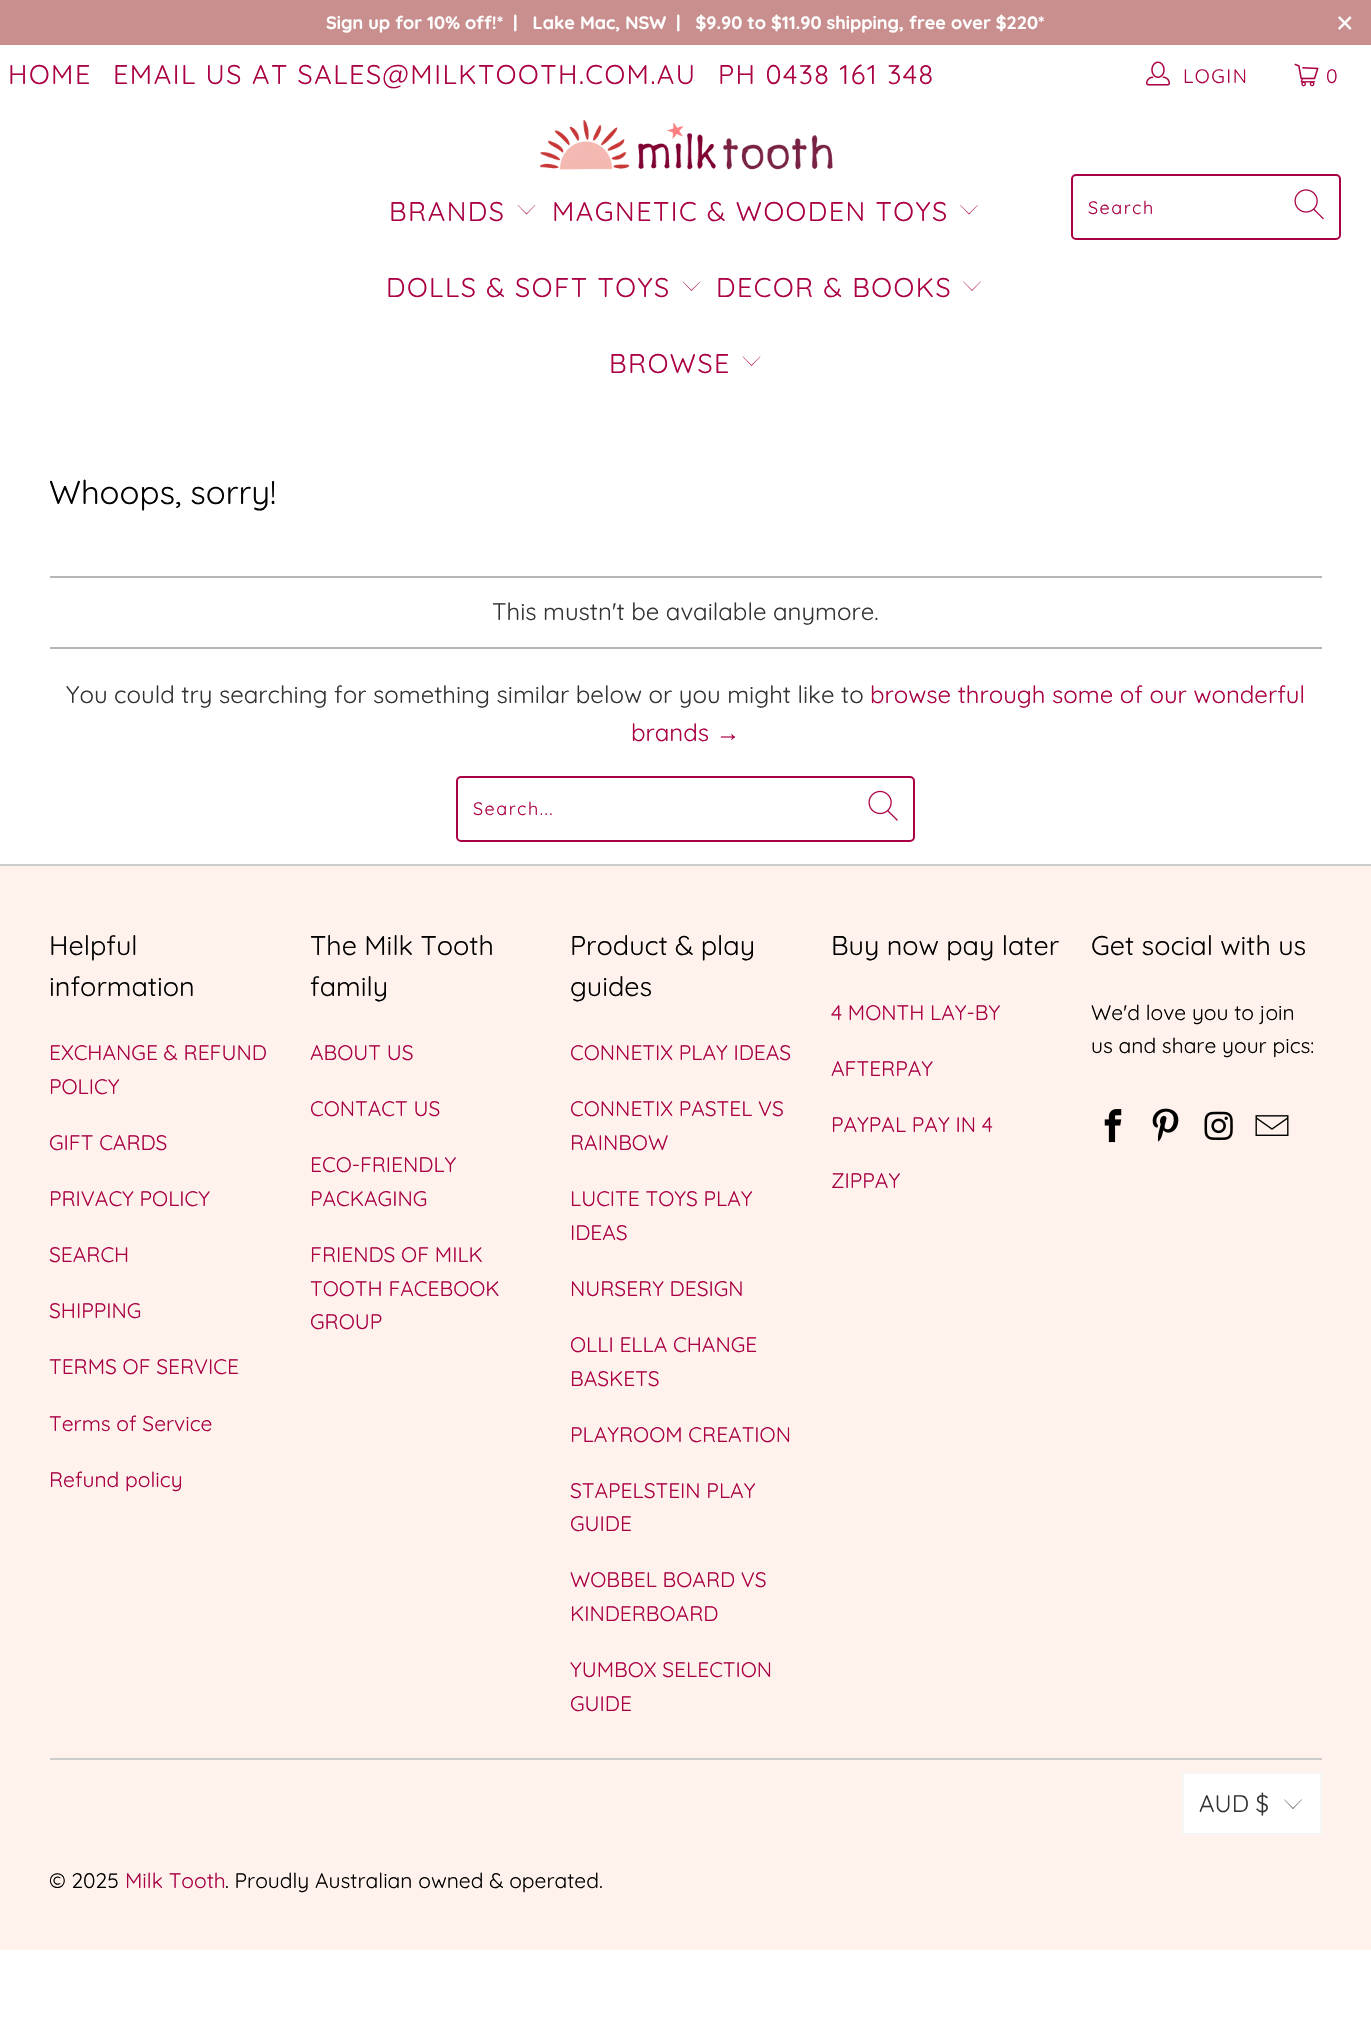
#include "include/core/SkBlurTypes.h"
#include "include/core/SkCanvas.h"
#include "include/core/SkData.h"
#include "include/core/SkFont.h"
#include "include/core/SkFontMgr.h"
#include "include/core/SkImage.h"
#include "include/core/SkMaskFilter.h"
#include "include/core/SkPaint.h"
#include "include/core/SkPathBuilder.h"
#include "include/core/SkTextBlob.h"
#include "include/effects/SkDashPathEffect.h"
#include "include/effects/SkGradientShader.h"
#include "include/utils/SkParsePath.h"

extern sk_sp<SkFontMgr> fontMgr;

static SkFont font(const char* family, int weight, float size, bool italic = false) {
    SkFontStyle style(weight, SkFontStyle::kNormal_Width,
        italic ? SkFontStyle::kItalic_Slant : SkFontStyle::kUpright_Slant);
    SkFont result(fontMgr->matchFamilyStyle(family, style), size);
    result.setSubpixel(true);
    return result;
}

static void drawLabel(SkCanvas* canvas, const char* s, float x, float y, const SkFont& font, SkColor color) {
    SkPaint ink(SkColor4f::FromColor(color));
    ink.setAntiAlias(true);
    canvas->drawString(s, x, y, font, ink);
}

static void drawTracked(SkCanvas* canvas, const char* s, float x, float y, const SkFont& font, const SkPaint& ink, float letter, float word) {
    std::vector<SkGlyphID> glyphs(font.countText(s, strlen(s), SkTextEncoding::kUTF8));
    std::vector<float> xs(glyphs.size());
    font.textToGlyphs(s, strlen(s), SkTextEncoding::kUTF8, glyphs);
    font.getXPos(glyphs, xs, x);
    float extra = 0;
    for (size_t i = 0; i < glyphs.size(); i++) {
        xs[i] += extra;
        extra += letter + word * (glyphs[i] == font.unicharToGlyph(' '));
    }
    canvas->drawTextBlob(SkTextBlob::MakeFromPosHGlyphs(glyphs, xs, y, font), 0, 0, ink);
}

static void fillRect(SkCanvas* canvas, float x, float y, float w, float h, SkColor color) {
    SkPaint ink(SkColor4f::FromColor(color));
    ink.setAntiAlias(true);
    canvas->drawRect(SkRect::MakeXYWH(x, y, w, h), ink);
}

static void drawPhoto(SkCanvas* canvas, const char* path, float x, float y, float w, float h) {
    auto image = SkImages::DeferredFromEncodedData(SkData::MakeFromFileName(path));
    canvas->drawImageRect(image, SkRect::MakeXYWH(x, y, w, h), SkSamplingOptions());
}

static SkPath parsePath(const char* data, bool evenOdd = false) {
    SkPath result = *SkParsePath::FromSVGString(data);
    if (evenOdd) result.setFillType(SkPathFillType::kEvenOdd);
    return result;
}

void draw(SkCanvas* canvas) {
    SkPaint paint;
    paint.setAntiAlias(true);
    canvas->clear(0xFFFFFFFF);
    fillRect(canvas, 0, 0, 1371, 45, 0xFFC98E8E);
    SkFont font1 = font("Quicksand", 700, 18);
    drawLabel(canvas, "Sign up for 10% off!*", 326, 29, font1, 0xFFFFFFFF);
    drawLabel(canvas, "|   Lake Mac, NSW", 513, 29, font1, 0xFFFFFFFF);
    drawLabel(canvas, "|   $9.90 to $11.90 shipping, free over $220*", 676, 29, font1, 0xFFFFFFFF);
    SkFont font2 = font("Liberation Sans", 400, 30);
    drawLabel(canvas, "×", 1336, 33, font2, 0xFFFFFFFF);
    SkFont font3 = font("Quicksand", 400, 27);
    paint.setColor(0xFFAA0044);
    drawTracked(canvas, "HOME", 8, 84, font3, paint, 1.5f, 0);
    drawTracked(canvas, "EMAIL US AT SALES@MILKTOOTH.COM.AU", 113, 84, font3, paint, 1.5f, 0);
    drawTracked(canvas, "PH 0438 161 348", 718, 84, font3, paint, 1.5f, 0);
    drawPhoto(canvas, "assets/img1.png", 1146, 61, 24, 25);
    SkFont font4 = font("Quicksand", 400, 19.5f);
    drawTracked(canvas, "LOGIN", 1183, 83, font4, paint, 1.5f, 0);
    drawPhoto(canvas, "assets/img2.png", 1294, 63, 25, 24);
    drawTracked(canvas, "0", 1326, 83, font4, paint, 1.5f, 0);
    drawPhoto(canvas, "assets/img3.png", 540, 120, 293, 50);
    drawTracked(canvas, "BRANDS", 389, 221, font3, paint, 1.5f, 0);
    canvas->drawPath(parsePath("M526.5 214.5L517.5 205H518L526.5 213.5L535 205H535.5Z"), paint);
    drawTracked(canvas, "MAGNETIC & WOODEN TOYS", 552, 221, font3, paint, 1.5f, 0);
    canvas->drawPath(parsePath("M969 214.5L960 205H960.5L969 213.5L977.5 205H978Z"), paint);
    drawTracked(canvas, "DOLLS & SOFT TOYS", 386, 297, font3, paint, 1.5f, 0);
    canvas->drawPath(parsePath("M691.5 291L682.5 281.5H683L691.5 290L700 281.5H700.5Z"), paint);
    drawTracked(canvas, "DECOR & BOOKS", 716, 297, font3, paint, 1.5f, 0);
    canvas->drawPath(parsePath("M972 291L963 281.5H963.5L972 290L980.5 281.5H981Z"), paint);
    drawTracked(canvas, "BROWSE", 609, 373, font3, paint, 1.5f, 0);
    canvas->drawPath(parsePath("M751.5 366L742.5 356.5H743L751.5 365L760 356.5H760.5Z"), paint);
    paint.setStroke(true);
    paint.setStrokeWidth(2);
    canvas->drawRoundRect(SkRect::MakeXYWH(1072, 175, 268, 64), 4, 4, paint);
    SkFont font5 = font("Quicksand", 400, 18);
    paint.setStroke(false);
    drawTracked(canvas, "Search", 1088, 214, font5, paint, 1.5f, 0);
    drawPhoto(canvas, "assets/img4.png", 1294, 189, 30, 31);
    SkFont font6 = font("Quicksand", 400, 33);
    drawLabel(canvas, "Whoops, sorry!", 49, 504, font6, 0xFF000000);
    fillRect(canvas, 50, 576, 1272, 2, 0xFFB6B6B6);
    fillRect(canvas, 50, 647, 1272, 2, 0xFFB6B6B6);
    SkFont font7 = font("Quicksand", 400, 24);
    drawLabel(canvas, "This mustn't be available anymore.", 492, 620, font7, 0xFF333333);
    drawLabel(canvas, "You could try searching for something similar below or you might like to", 66, 703, font7, 0xFF333333);
    drawLabel(canvas, "browse through some of our wonderful", 870, 703, font7, 0xFFAA0044);
    drawLabel(canvas, "brands", 631, 741, font7, 0xFFAA0044);
    SkFont font8 = font("Liberation Sans", 400, 24);
    drawLabel(canvas, "→", 716, 741, font8, 0xFFAA0044);
    paint.setStroke(true);
    canvas->drawRoundRect(SkRect::MakeXYWH(457, 777, 457, 64), 4, 4, paint);
    paint.setStroke(false);
    drawTracked(canvas, "Search...", 473, 815, font5, paint, 1.5f, 0);
    drawPhoto(canvas, "assets/img5.png", 868, 790, 30, 31);
    fillRect(canvas, 0, 866, 1371, 1084, 0xFFFFF2EC);
    fillRect(canvas, 0, 864, 1371, 2, 0xFFCCCCCC);
    drawLabel(canvas, "Helpful", 49, 955, font3, 0xFF000000);
    drawLabel(canvas, "information", 49, 996, font3, 0xFF000000);
    SkFont font9 = font("Quicksand", 400, 21);
    drawLabel(canvas, "EXCHANGE & REFUND", 49, 1060, font9, 0xFFAA0044);
    drawLabel(canvas, "POLICY", 49, 1094, font9, 0xFFAA0044);
    drawLabel(canvas, "GIFT CARDS", 49, 1150, font9, 0xFFAA0044);
    drawLabel(canvas, "PRIVACY POLICY", 49, 1206, font9, 0xFFAA0044);
    drawLabel(canvas, "SEARCH", 49, 1262, font9, 0xFFAA0044);
    drawLabel(canvas, "SHIPPING", 49, 1318, font9, 0xFFAA0044);
    drawLabel(canvas, "TERMS OF SERVICE", 49, 1374, font9, 0xFFAA0044);
    drawLabel(canvas, "Terms of Service", 49, 1431, font9, 0xFFAA0044);
    drawLabel(canvas, "Refund policy", 49, 1487, font9, 0xFFAA0044);
    drawLabel(canvas, "The Milk Tooth", 310, 955, font3, 0xFF000000);
    drawLabel(canvas, "family", 310, 996, font3, 0xFF000000);
    drawLabel(canvas, "ABOUT US", 310, 1060, font9, 0xFFAA0044);
    drawLabel(canvas, "CONTACT US", 310, 1116, font9, 0xFFAA0044);
    drawLabel(canvas, "ECO-FRIENDLY", 310, 1172, font9, 0xFFAA0044);
    drawLabel(canvas, "PACKAGING", 310, 1206, font9, 0xFFAA0044);
    drawLabel(canvas, "FRIENDS OF MILK", 310, 1262, font9, 0xFFAA0044);
    drawLabel(canvas, "TOOTH FACEBOOK", 310, 1296, font9, 0xFFAA0044);
    drawLabel(canvas, "GROUP", 310, 1329, font9, 0xFFAA0044);
    drawLabel(canvas, "Product & play", 570, 955, font3, 0xFF000000);
    drawLabel(canvas, "guides", 570, 996, font3, 0xFF000000);
    drawLabel(canvas, "CONNETIX PLAY IDEAS", 570, 1060, font9, 0xFFAA0044);
    drawLabel(canvas, "CONNETIX PASTEL VS", 570, 1116, font9, 0xFFAA0044);
    drawLabel(canvas, "RAINBOW", 570, 1150, font9, 0xFFAA0044);
    drawLabel(canvas, "LUCITE TOYS PLAY", 570, 1206, font9, 0xFFAA0044);
    drawLabel(canvas, "IDEAS", 570, 1240, font9, 0xFFAA0044);
    drawLabel(canvas, "NURSERY DESIGN", 570, 1296, font9, 0xFFAA0044);
    drawLabel(canvas, "OLLI ELLA CHANGE", 570, 1352, font9, 0xFFAA0044);
    drawLabel(canvas, "BASKETS", 570, 1386, font9, 0xFFAA0044);
    drawLabel(canvas, "PLAYROOM CREATION", 570, 1442, font9, 0xFFAA0044);
    drawLabel(canvas, "STAPELSTEIN PLAY", 570, 1498, font9, 0xFFAA0044);
    drawLabel(canvas, "GUIDE", 570, 1531, font9, 0xFFAA0044);
    drawLabel(canvas, "WOBBEL BOARD VS", 570, 1587, font9, 0xFFAA0044);
    drawLabel(canvas, "KINDERBOARD", 570, 1621, font9, 0xFFAA0044);
    drawLabel(canvas, "YUMBOX SELECTION", 570, 1677, font9, 0xFFAA0044);
    drawLabel(canvas, "GUIDE", 570, 1711, font9, 0xFFAA0044);
    drawLabel(canvas, "Buy now pay later", 831, 955, font3, 0xFF000000);
    drawLabel(canvas, "4 MONTH LAY-BY", 831, 1020, font9, 0xFFAA0044);
    drawLabel(canvas, "AFTERPAY", 831, 1076, font9, 0xFFAA0044);
    drawLabel(canvas, "PAYPAL PAY IN 4", 831, 1132, font9, 0xFFAA0044);
    drawLabel(canvas, "ZIPPAY", 831, 1188, font9, 0xFFAA0044);
    drawLabel(canvas, "Get social with us", 1091, 955, font3, 0xFF000000);
    drawLabel(canvas, "We'd love you to join", 1091, 1020, font9, 0xFF000000);
    drawLabel(canvas, "us and share your pics:", 1091, 1053, font9, 0xFF000000);
    drawPhoto(canvas, "assets/img6.png", 1104, 1109, 18, 34);
    drawPhoto(canvas, "assets/img7.png", 1152, 1108, 27, 34);
    drawPhoto(canvas, "assets/img8.png", 1204, 1111, 29, 29);
    drawPhoto(canvas, "assets/img9.png", 1255, 1115, 34, 21);
    fillRect(canvas, 50, 1758, 1272, 2, 0xFFCCCCCC);
    paint.setColor(0xFFFFFFFF);
    canvas->drawRect(SkRect::MakeXYWH(1183, 1773, 138, 61), paint);
    paint.setStroke(true);
    paint.setColor(0xFFF5F5F5);
    canvas->drawRect(SkRect::MakeXYWH(1183, 1773, 138, 61), paint);
    drawLabel(canvas, "AUD $", 1199, 1812, font7, 0xFF333333);
    paint.setStroke(false);
    paint.setColor(0xFF333333);
    canvas->drawPath(parsePath("M1293 1809L1284 1799.5H1284.5L1293 1808L1301.5 1799.5H1302Z"), paint);
    drawLabel(canvas, "© 2025", 49, 1888, font9, 0xFF000000);
    drawLabel(canvas, "Milk Tooth", 125, 1888, font9, 0xFFAA0044);
    drawLabel(canvas, ". Proudly Australian owned & operated.", 225, 1888, font9, 0xFF000000);
}
